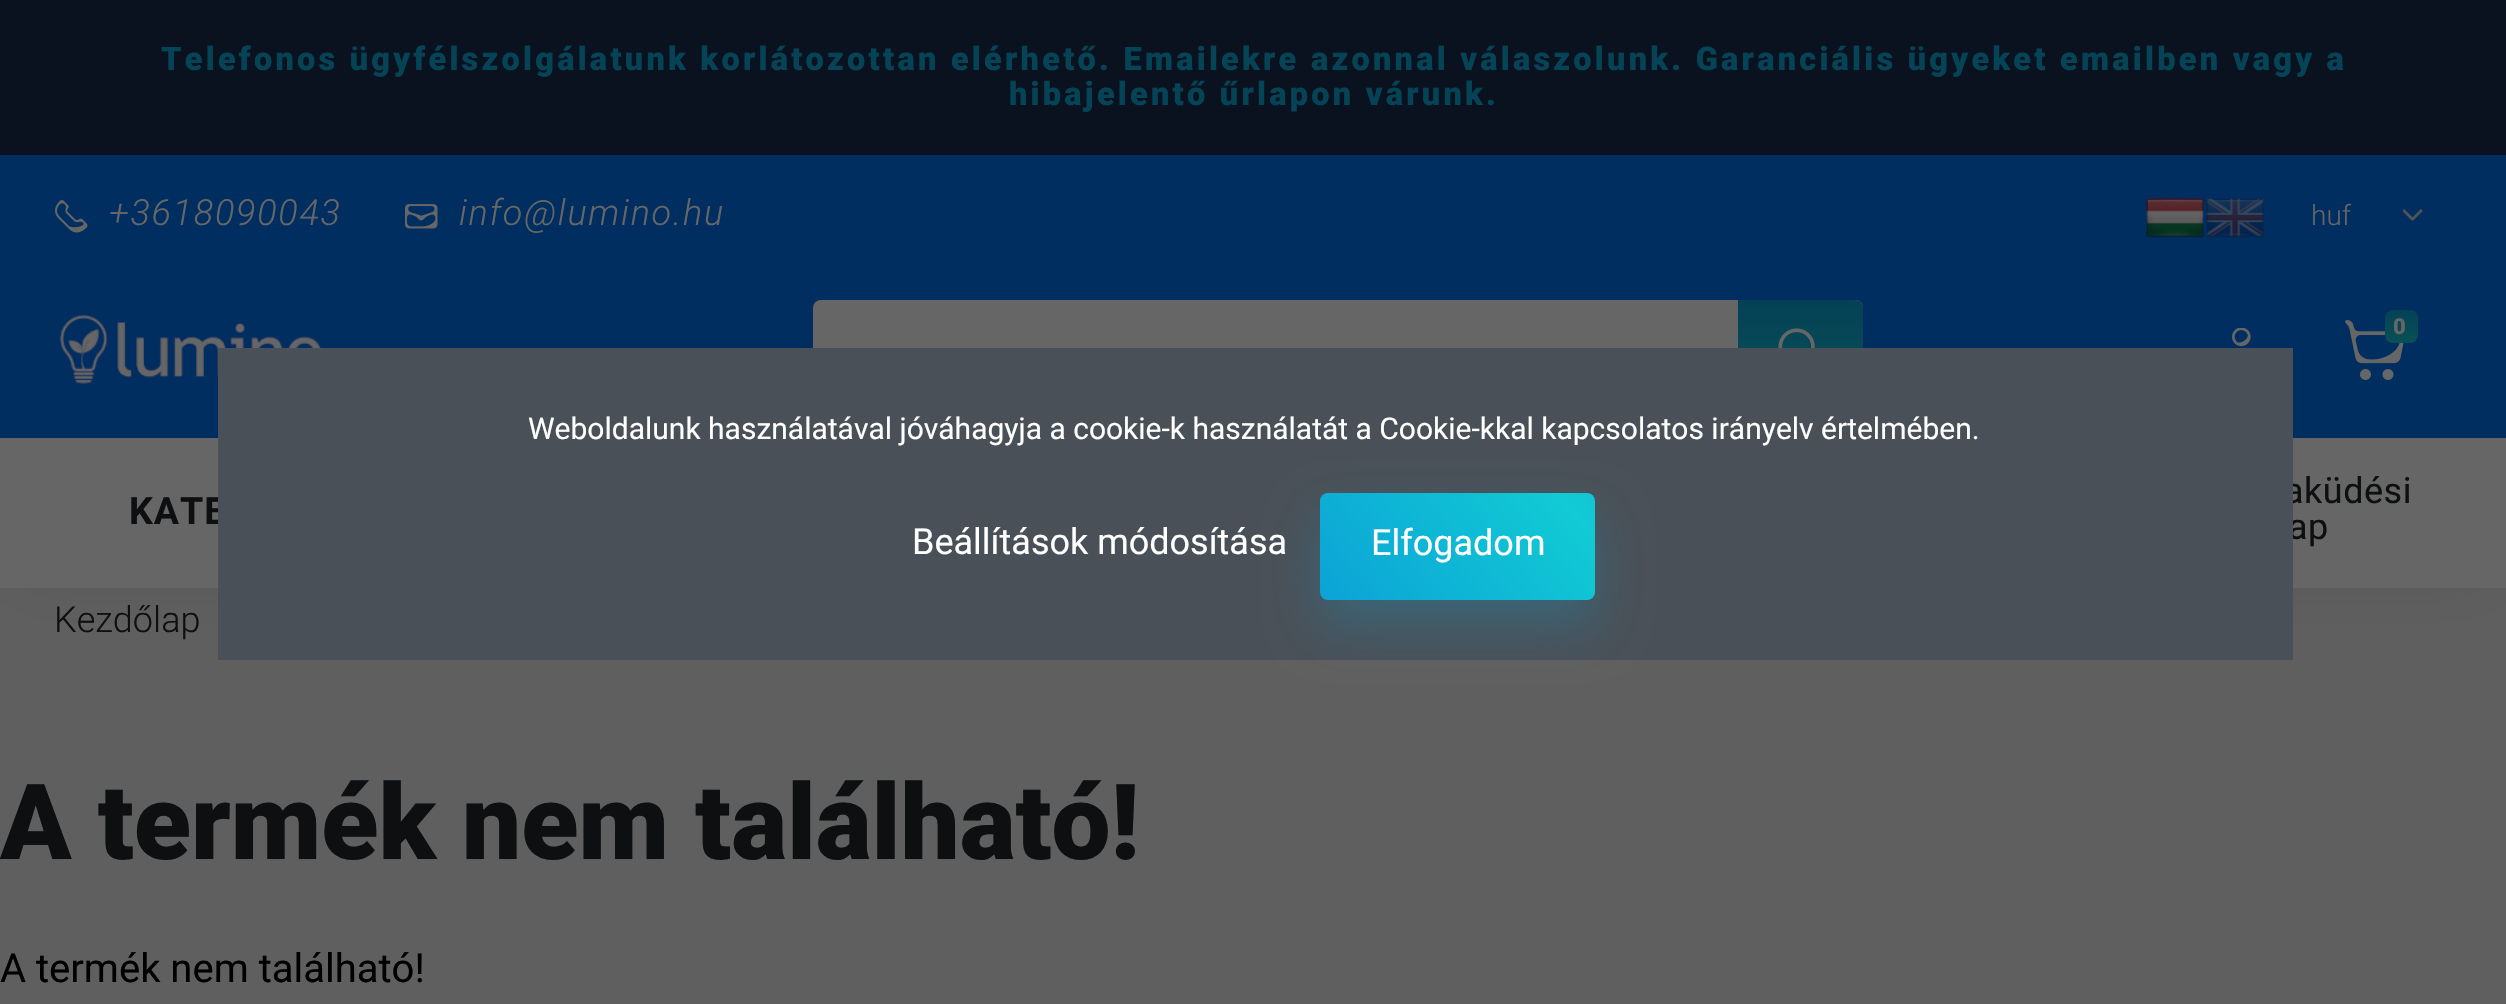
#include "include/core/SkBlurTypes.h"
#include "include/core/SkCanvas.h"
#include "include/core/SkData.h"
#include "include/core/SkFont.h"
#include "include/core/SkFontMgr.h"
#include "include/core/SkImage.h"
#include "include/core/SkMaskFilter.h"
#include "include/core/SkPaint.h"
#include "include/core/SkPathBuilder.h"
#include "include/core/SkTextBlob.h"
#include "include/effects/SkDashPathEffect.h"
#include "include/effects/SkGradientShader.h"
#include "include/utils/SkParsePath.h"

extern sk_sp<SkFontMgr> fontMgr;

static SkFont font(const char* family, int weight, float size, bool italic = false) {
    SkFontStyle style(weight, SkFontStyle::kNormal_Width,
        italic ? SkFontStyle::kItalic_Slant : SkFontStyle::kUpright_Slant);
    SkFont result(fontMgr->matchFamilyStyle(family, style), size);
    result.setSubpixel(true);
    return result;
}

static void drawLabel(SkCanvas* canvas, const char* s, float x, float y, const SkFont& font, SkColor color) {
    SkPaint ink(SkColor4f::FromColor(color));
    ink.setAntiAlias(true);
    canvas->drawString(s, x, y, font, ink);
}

static void drawTracked(SkCanvas* canvas, const char* s, float x, float y, const SkFont& font, const SkPaint& ink, float letter, float word) {
    std::vector<SkGlyphID> glyphs(font.countText(s, strlen(s), SkTextEncoding::kUTF8));
    std::vector<float> xs(glyphs.size());
    font.textToGlyphs(s, strlen(s), SkTextEncoding::kUTF8, glyphs);
    font.getXPos(glyphs, xs, x);
    float extra = 0;
    for (size_t i = 0; i < glyphs.size(); i++) {
        xs[i] += extra;
        extra += letter + word * (glyphs[i] == font.unicharToGlyph(' '));
    }
    canvas->drawTextBlob(SkTextBlob::MakeFromPosHGlyphs(glyphs, xs, y, font), 0, 0, ink);
}

static void fillRect(SkCanvas* canvas, float x, float y, float w, float h, SkColor color) {
    SkPaint ink(SkColor4f::FromColor(color));
    ink.setAntiAlias(true);
    canvas->drawRect(SkRect::MakeXYWH(x, y, w, h), ink);
}

static void fillRRect(SkCanvas* canvas, float x, float y, float w, float h, float radius, SkColor color) {
    SkPaint ink(SkColor4f::FromColor(color));
    ink.setAntiAlias(true);
    canvas->drawRoundRect(SkRect::MakeXYWH(x, y, w, h), radius, radius, ink);
}

static void drawPhoto(SkCanvas* canvas, const char* path, float x, float y, float w, float h) {
    auto image = SkImages::DeferredFromEncodedData(SkData::MakeFromFileName(path));
    canvas->drawImageRect(image, SkRect::MakeXYWH(x, y, w, h), SkSamplingOptions());
}

static SkPath parsePath(const char* data, bool evenOdd = false) {
    SkPath result = *SkParsePath::FromSVGString(data);
    if (evenOdd) result.setFillType(SkPathFillType::kEvenOdd);
    return result;
}

void draw(SkCanvas* canvas) {
    SkPaint paint;
    paint.setAntiAlias(true);
    canvas->clear(0xFF5F5F5F);
    paint.setColor(0x26000000);
    paint.setMaskFilter(SkMaskFilter::MakeBlur(kNormal_SkBlurStyle, 31));
    canvas->drawRect(SkRect::MakeXYWH(25, 25, 2458, 538), paint);
    paint.setMaskFilter(nullptr);
    fillRect(canvas, 0, 155, 2506, 283, 0xFF002E60);
    fillRect(canvas, 0, 0, 2506, 155, 0xFF09121E);
    SkFont font1 = font("Roboto", 900, 32.5f);
    paint.setColor(0xFF054356);
    drawTracked(canvas, "Telefonos ügyfélszolgálatunk korlátozottan elérhető. Emailekre azonnal válaszolunk. Garanciális ügyeket emailben vagy a", 161, 70, font1, paint, 3.25f, 0);
    drawTracked(canvas, "hibajelentő űrlapon várunk.", 1009, 105, font1, paint, 3.25f, 0);
    drawPhoto(canvas, "assets/img1.png", 55, 200, 33, 33);
    SkFont font2 = font("Roboto", 300, 36, true);
    paint.setColor(0xFF666666);
    drawTracked(canvas, "+3618090043", 109, 225, font2, paint, 1.75f, 0);
    drawPhoto(canvas, "assets/img2.png", 405, 204, 33, 25);
    drawTracked(canvas, "info@lumino.hu", 459, 225, font2, paint, 1.75f, 0);
    drawPhoto(canvas, "assets/img3.png", 2146, 198, 58, 40);
    drawPhoto(canvas, "assets/img4.png", 2206, 198, 58, 40);
    drawPhoto(canvas, "assets/img5.png", 2403, 209, 20, 12);
    SkFont font3 = font("Roboto", 300, 28);
    drawLabel(canvas, "huf", 2311, 225, font3, 0xFF666666);
    drawPhoto(canvas, "assets/img6.png", 59, 314, 264, 70);
    fillRRect(canvas, 813, 300, 1050, 100, 8, 0xFF666666);
    {
        const SkColor colors[] = {0xFF054156, 0xFF075155};
        const float stops[] = {0, 1};
        const SkPoint ends[] = {{1800, 300}, {1800, 400}};
        paint.setShader(SkGradientShader::MakeLinear(ends, colors, stops, 2, SkTileMode::kClamp));
        paint.setAlpha(255);
    }
    canvas->drawPath(parsePath("M1738 300H1855C1859.5 300 1863 303.5 1863 308V392C1863 396.5 1859.5 400 1855 400H1738Z"), paint);
    drawPhoto(canvas, "assets/img7.png", 1778, 328, 37, 20);
    drawPhoto(canvas, "assets/img8.png", 2345, 320, 59, 60);
    {
        const SkColor colors[] = {0xFF054156, 0xFF075155};
        const float stops[] = {0, 1};
        const SkPoint ends[] = {{2401, 310}, {2401, 343}};
        paint.setShader(SkGradientShader::MakeLinear(ends, colors, stops, 2, SkTileMode::kClamp));
        paint.setAlpha(255);
    }
    canvas->drawRoundRect(SkRect::MakeXYWH(2385, 310, 33, 33), 8, 8, paint);
    SkFont font4 = font("Roboto", 900, 22);
    paint.setShader(nullptr);
    paint.setColor(0xFF666666);
    drawTracked(canvas, "0", 2393, 334, font4, paint, 0.5f, 0);
    drawPhoto(canvas, "assets/img9.png", 2232, 328, 19, 19);
    fillRect(canvas, 0, 438, 2506, 150, 0xFF666666);
    SkFont font5 = font("Roboto", 700, 37.5f);
    paint.setColor(0xFF0E0F10);
    drawTracked(canvas, "KATE", 129, 524, font5, paint, 1, 0);
    SkFont font6 = font("Roboto", 400, 36);
    drawTracked(canvas, "aküdési", 2284, 503, font6, paint, 0.5f, 0);
    drawTracked(canvas, "ap", 2288, 539, font6, paint, 0.5f, 0);
    SkFont font7 = font("Roboto", 300, 36);
    drawLabel(canvas, "Kezdőlap", 54, 632, font7, 0xFF0E0F10);
    SkFont font8 = font("Roboto", 900, 105);
    drawLabel(canvas, "A termék nem található!", 0, 859, font8, 0xFF0E0F10);
    SkFont font9 = font("Roboto", 400, 40);
    drawLabel(canvas, "A termék nem található!", 0, 982, font9, 0xFF000000);
    fillRect(canvas, 218, 348, 2075, 312, 0xFF495057);
    SkFont font10 = font("Roboto", 400, 30);
    drawLabel(canvas, "Weboldalunk használatával jóváhagyja a cookie-k használatát a Cookie-kkal kapcsolatos irányelv értelmében.", 528, 439, font10, 0xFFFFFFFF);
    drawLabel(canvas, "Beállítások módosítása", 912, 554, font6, 0xFFFFFFFF);
    paint.setColor(0x400CA3D6);
    paint.setMaskFilter(SkMaskFilter::MakeBlur(kNormal_SkBlurStyle, 25));
    canvas->drawRoundRect(SkRect::MakeXYWH(1320, 518, 275, 107), 8, 8, paint);
    paint.setMaskFilter(nullptr);
    {
        const SkColor colors[] = {0xFF0CA3D6, 0xFF11CAD4, 0xFF0CA3D6};
        const float stops[] = {0, 0.51f, 1};
        const SkPoint ends[] = {{1407, 703}, {1783, 388}};
        paint.setShader(SkGradientShader::MakeLinear(ends, colors, stops, 3, SkTileMode::kClamp));
        paint.setAlpha(255);
    }
    canvas->drawRoundRect(SkRect::MakeXYWH(1320, 493, 275, 107), 8, 8, paint);
    drawLabel(canvas, "Elfogadom", 1371, 555, font6, 0xFFFFFFFF);
}
